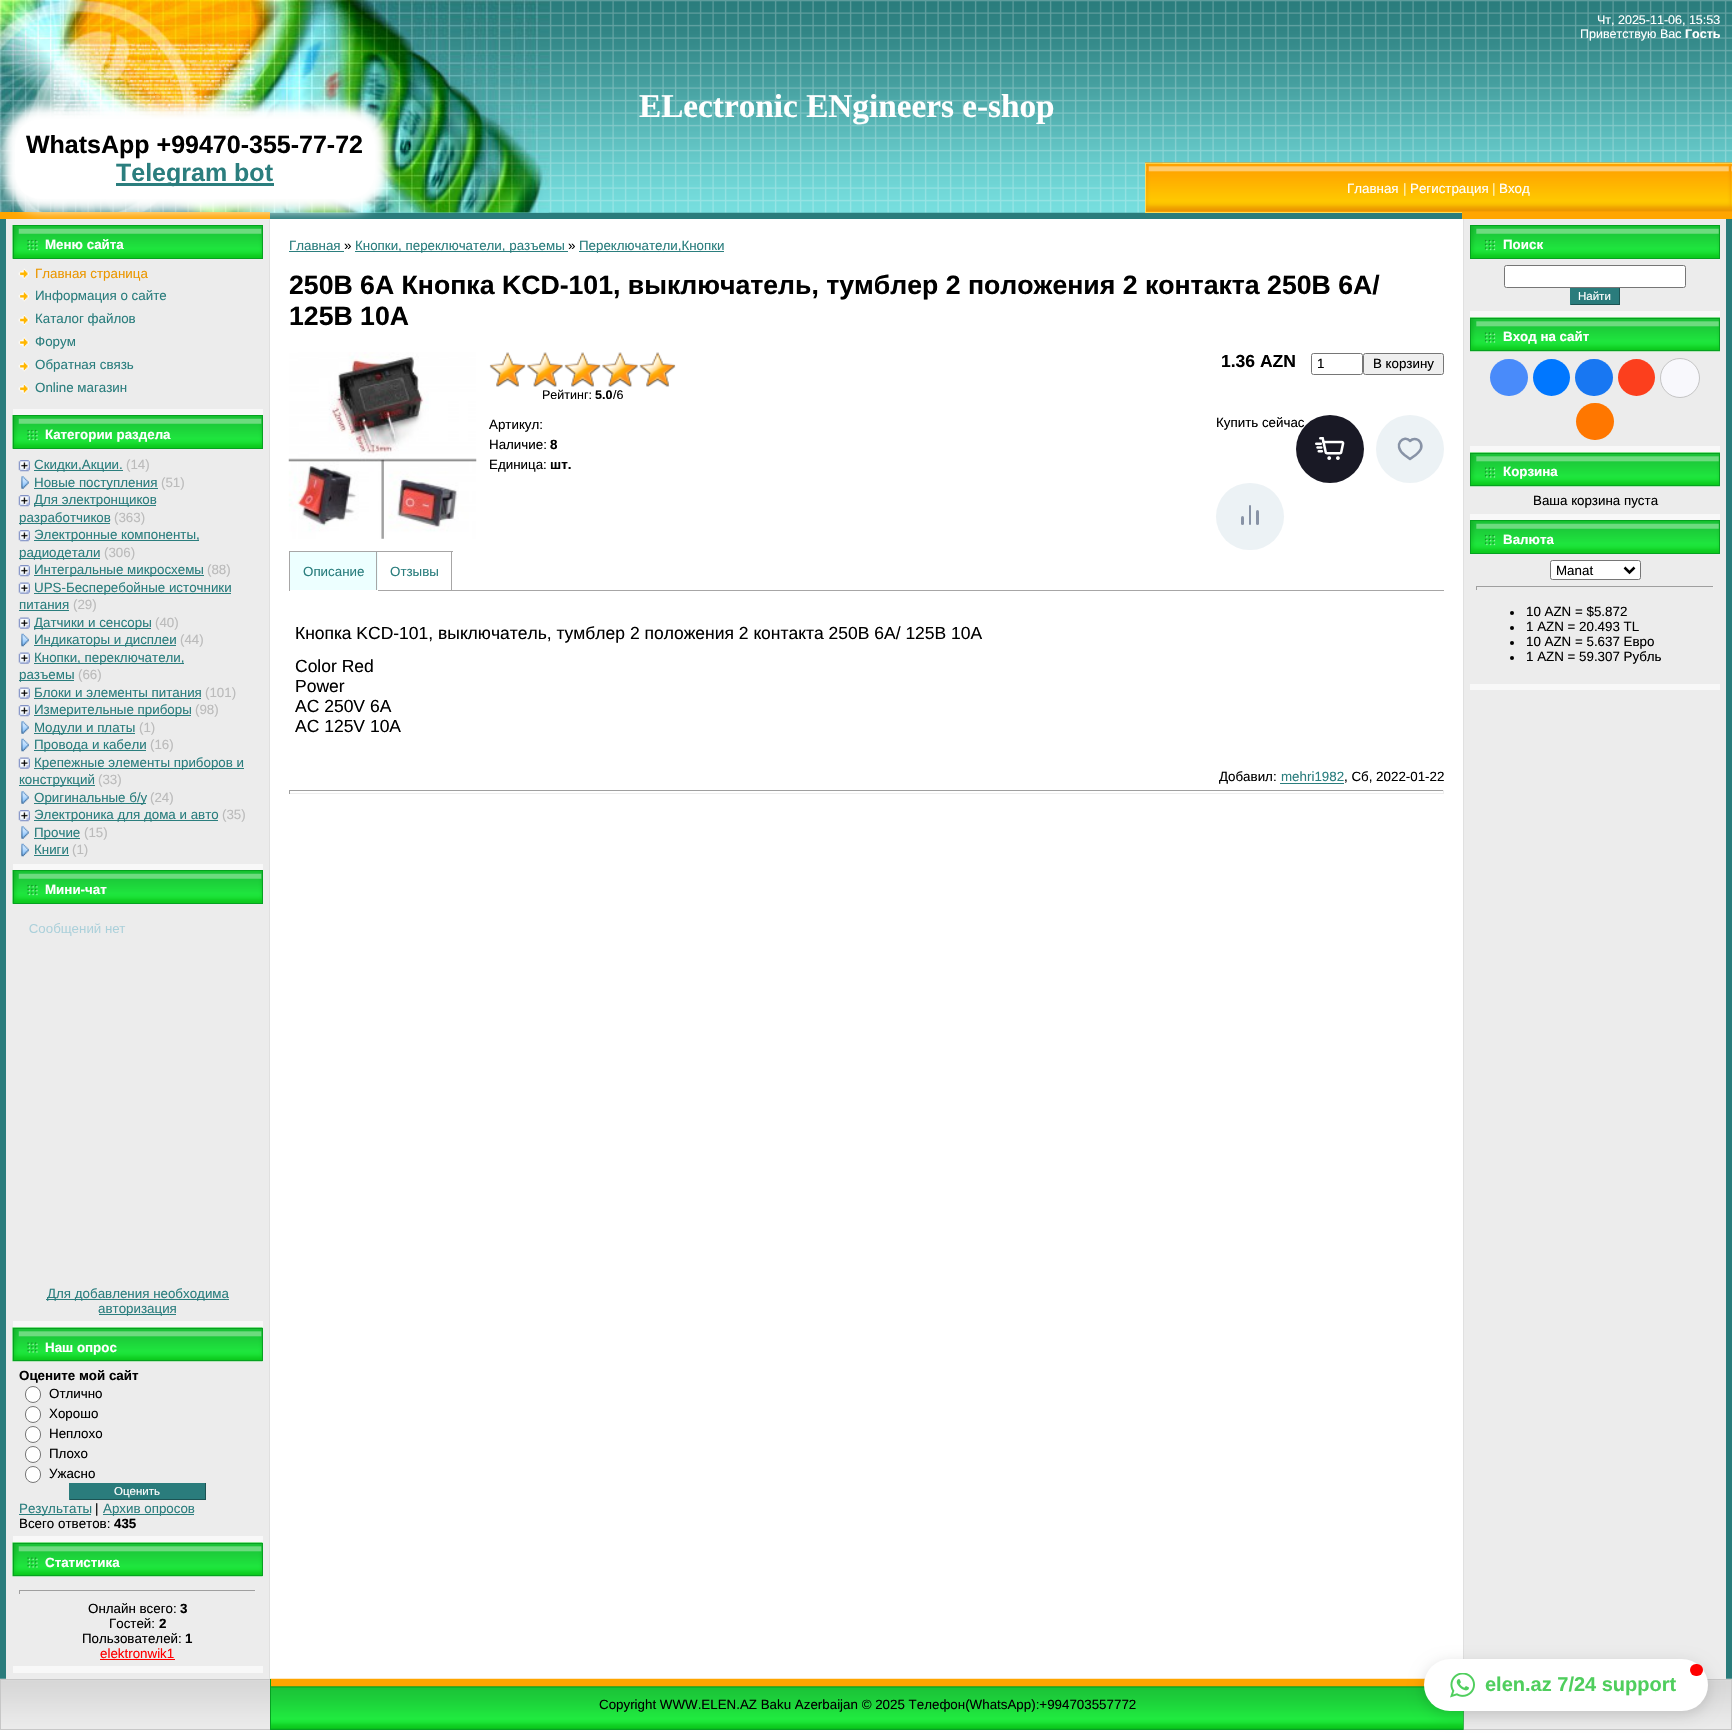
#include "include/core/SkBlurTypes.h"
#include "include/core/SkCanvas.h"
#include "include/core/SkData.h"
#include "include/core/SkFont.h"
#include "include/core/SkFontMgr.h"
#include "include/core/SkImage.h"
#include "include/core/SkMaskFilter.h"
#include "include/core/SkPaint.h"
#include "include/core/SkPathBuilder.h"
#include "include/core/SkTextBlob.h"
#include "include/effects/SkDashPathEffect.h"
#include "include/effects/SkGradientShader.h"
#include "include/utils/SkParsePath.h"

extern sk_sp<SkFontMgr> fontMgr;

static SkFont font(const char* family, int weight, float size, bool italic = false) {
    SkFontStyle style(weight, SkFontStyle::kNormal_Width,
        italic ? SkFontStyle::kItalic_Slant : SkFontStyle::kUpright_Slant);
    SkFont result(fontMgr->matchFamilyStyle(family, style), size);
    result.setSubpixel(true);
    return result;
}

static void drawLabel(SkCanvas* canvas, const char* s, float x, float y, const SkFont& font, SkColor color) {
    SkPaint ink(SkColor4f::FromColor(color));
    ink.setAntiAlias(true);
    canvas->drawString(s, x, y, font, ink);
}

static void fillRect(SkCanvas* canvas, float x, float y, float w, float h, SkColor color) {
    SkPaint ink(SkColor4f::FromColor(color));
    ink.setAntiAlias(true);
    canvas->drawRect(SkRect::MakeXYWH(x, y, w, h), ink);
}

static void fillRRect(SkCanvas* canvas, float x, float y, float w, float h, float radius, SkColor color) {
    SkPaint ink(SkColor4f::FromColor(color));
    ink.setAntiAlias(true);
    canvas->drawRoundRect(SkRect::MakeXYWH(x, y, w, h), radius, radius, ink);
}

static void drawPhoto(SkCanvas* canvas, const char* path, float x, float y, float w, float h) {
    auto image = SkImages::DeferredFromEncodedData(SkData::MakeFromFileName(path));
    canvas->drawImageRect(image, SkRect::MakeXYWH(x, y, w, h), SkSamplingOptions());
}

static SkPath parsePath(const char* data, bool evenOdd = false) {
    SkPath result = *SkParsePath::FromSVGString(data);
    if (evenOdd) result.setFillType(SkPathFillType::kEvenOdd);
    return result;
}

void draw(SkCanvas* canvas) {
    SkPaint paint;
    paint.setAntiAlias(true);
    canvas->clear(0xFFFFFFFF);
    fillRect(canvas, 270, 212, 875, 1, 0xFF50ADAD);
    drawPhoto(canvas, "assets/img1.png", 270, 0, 1462, 213);
    drawPhoto(canvas, "assets/img2.png", 0, 0, 549, 213);
    SkFont font1 = font("Liberation Sans", 400, 12.5f);
    drawLabel(canvas, "Чт, 2025-11-06, 15:53", 1597, 24, font1, 0xFFFFFFFF);
    drawLabel(canvas, "Приветствую Вас", 1580, 38, font1, 0xFFFFFFFF);
    SkFont font2 = font("Liberation Sans", 700, 12.5f);
    drawLabel(canvas, "Гость", 1685, 38, font2, 0xFFFFFFFF);
    SkFont font3 = font("Liberation Serif", 700, 33.25f);
    drawLabel(canvas, "ELectronic ENgineers e-shop", 639, 117, font3, 0xFFFFFFFF);
    fillRect(canvas, 0, 212, 270, 7, 0xFFFFA500);
    fillRect(canvas, 270, 213, 1193, 6, 0xFF2A7C7C);
    fillRect(canvas, 6, 219, 263, 1460, 0xFFECECEC);
    fillRect(canvas, 269, 219, 1, 1460, 0xFFE0E0E0);
    fillRect(canvas, 0, 219, 6, 1460, 0xFF2A7C7C);
    drawPhoto(canvas, "assets/img6.png", 12, 225, 250, 34);
    paint.setStroke(true);
    paint.setStrokeWidth(1);
    paint.setColor(0xFF06A121);
    canvas->drawRect(SkRect::MakeXYWH(13.5f, 225.5f, 249, 33), paint);
    paint.setStroke(false);
    paint.setColor(0xFFFFFFFF);
    paint.setMaskFilter(SkMaskFilter::MakeBlur(kNormal_SkBlurStyle, 6));
    canvas->drawRoundRect(SkRect::MakeXYWH(3, 106, 385, 105), 38, 38, paint);
    paint.setMaskFilter(nullptr);
    fillRRect(canvas, 15, 119, 360, 80, 25, 0xFFFFFFFF);
    SkFont font4 = font("Liberation Sans", 700, 25);
    drawLabel(canvas, "WhatsApp +99470-355-77-72", 26, 153, font4, 0xFF000000);
    fillRect(canvas, 116, 183, 158, 3, 0xFF2B7E7E);
    drawLabel(canvas, "Telegram bot", 116, 181, font4, 0xFF2B7E7E);
    drawPhoto(canvas, "assets/img3.png", 1145, 162, 587, 50);
    paint.setStroke(true);
    paint.setColor(0xFFFFDC58);
    canvas->drawRect(SkRect::MakeXYWH(1145.5f, 163.5f, 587, 49), paint);
    drawPhoto(canvas, "assets/img4.png", 1146, 163, 17, 44);
    SkFont font5 = font("Liberation Sans", 400, 13.35f);
    drawLabel(canvas, "Главная", 1347, 193, font5, 0xFFFFFFFF);
    drawLabel(canvas, "|", 1403, 193, font5, 0xFFFFF2B6);
    drawLabel(canvas, "Регистрация", 1410, 193, font5, 0xFFFFFFFF);
    drawLabel(canvas, "|", 1492, 193, font5, 0xFFFFF2B6);
    drawLabel(canvas, "Вход", 1499, 193, font5, 0xFFFFFFFF);
    drawPhoto(canvas, "assets/img5.png", 1715, 163, 17, 45);
    fillRect(canvas, 1462, 212, 270, 7, 0xFFFFA500);
    fillRect(canvas, 13, 409, 250, 6, 0xFFF8F8F8);
    SkFont font6 = font("Liberation Sans", 700, 13.35f);
    drawLabel(canvas, "Меню сайта", 45, 249, font6, 0xFFFFFFFF);
    drawPhoto(canvas, "assets/img7.png", 18, 268, 11, 11);
    drawLabel(canvas, "Главная страница", 35, 278, font5, 0xFFEB9700);
    drawPhoto(canvas, "assets/img8.png", 18, 291, 11, 11);
    drawLabel(canvas, "Информация о сайте", 35, 300, font5, 0xFF2B7E7E);
    drawPhoto(canvas, "assets/img9.png", 18, 315, 11, 10);
    drawLabel(canvas, "Каталог файлов", 35, 323, font5, 0xFF2B7E7E);
    drawPhoto(canvas, "assets/img10.png", 18, 337, 11, 11);
    drawLabel(canvas, "Форум", 35, 346, font5, 0xFF2B7E7E);
    drawPhoto(canvas, "assets/img11.png", 18, 361, 11, 11);
    drawLabel(canvas, "Обратная связь", 35, 369, font5, 0xFF2B7E7E);
    drawPhoto(canvas, "assets/img7.png", 18, 383, 11, 11);
    drawLabel(canvas, "Online магазин", 35, 392, font5, 0xFF2B7E7E);
    fillRect(canvas, 13, 864, 250, 6, 0xFFF8F8F8);
    drawPhoto(canvas, "assets/img6.png", 12, 415, 250, 34);
    paint.setColor(0xFF06A121);
    canvas->drawRect(SkRect::MakeXYWH(13.5f, 415.5f, 249, 33), paint);
    drawLabel(canvas, "Категории раздела", 45, 439, font6, 0xFFFFFFFF);
    drawPhoto(canvas, "assets/img12.png", 18, 460, 12, 12);
    fillRect(canvas, 34, 470, 89, 1, 0xFF2B7E7E);
    drawLabel(canvas, "Скидки,Aкции.", 34, 469, font5, 0xFF2B7E7E);
    drawLabel(canvas, "(14)", 126, 469, font5, 0xFFBBBBBB);
    drawPhoto(canvas, "assets/img13.png", 21, 476, 8, 13);
    fillRect(canvas, 34, 488, 124, 1, 0xFF2B7E7E);
    drawLabel(canvas, "Новые поступления", 34, 487, font5, 0xFF2B7E7E);
    drawLabel(canvas, "(51)", 161, 487, font5, 0xFFBBBBBB);
    drawPhoto(canvas, "assets/img12.png", 18, 495, 12, 12);
    fillRect(canvas, 34, 505, 122, 1, 0xFF2B7E7E);
    drawLabel(canvas, "Для электронщиков", 34, 504, font5, 0xFF2B7E7E);
    fillRect(canvas, 19, 523, 91, 1, 0xFF2B7E7E);
    drawLabel(canvas, "разработчиков", 19, 522, font5, 0xFF2B7E7E);
    drawLabel(canvas, "(363)", 114, 522, font5, 0xFFBBBBBB);
    drawPhoto(canvas, "assets/img12.png", 18, 530, 12, 12);
    fillRect(canvas, 34, 540, 165, 1, 0xFF2B7E7E);
    drawLabel(canvas, "Электронные компоненты,", 34, 539, font5, 0xFF2B7E7E);
    fillRect(canvas, 19, 558, 81, 1, 0xFF2B7E7E);
    drawLabel(canvas, "радиодетали", 19, 557, font5, 0xFF2B7E7E);
    drawLabel(canvas, "(306)", 104, 557, font5, 0xFFBBBBBB);
    drawPhoto(canvas, "assets/img12.png", 18, 565, 12, 12);
    fillRect(canvas, 34, 575, 170, 1, 0xFF2B7E7E);
    drawLabel(canvas, "Интегральные микросхемы", 34, 574, font5, 0xFF2B7E7E);
    drawLabel(canvas, "(88)", 207, 574, font5, 0xFFBBBBBB);
    drawPhoto(canvas, "assets/img14.png", 18, 582, 12, 12);
    fillRect(canvas, 34, 593, 197, 1, 0xFF2B7E7E);
    drawLabel(canvas, "UPS-Бесперебойные источники", 34, 592, font5, 0xFF2B7E7E);
    drawLabel(canvas, "питания", 19, 609, font5, 0xFF2B7E7E);
    fillRect(canvas, 19, 610, 50, 1, 0xFF2B7E7E);
    drawLabel(canvas, "(29)", 73, 609, font5, 0xFFBBBBBB);
    drawPhoto(canvas, "assets/img15.png", 18, 617, 12, 12);
    fillRect(canvas, 34, 628, 117, 1, 0xFF2B7E7E);
    drawLabel(canvas, "Датчики и сенсоры", 34, 627, font5, 0xFF2B7E7E);
    drawLabel(canvas, "(40)", 155, 627, font5, 0xFFBBBBBB);
    drawPhoto(canvas, "assets/img16.png", 21, 633, 8, 14);
    fillRect(canvas, 34, 645, 142, 1, 0xFF2B7E7E);
    drawLabel(canvas, "Индикаторы и дисплеи", 34, 644, font5, 0xFF2B7E7E);
    drawLabel(canvas, "(44)", 180, 644, font5, 0xFFBBBBBB);
    drawPhoto(canvas, "assets/img15.png", 18, 652, 12, 12);
    fillRect(canvas, 34, 663, 150, 1, 0xFF2B7E7E);
    drawLabel(canvas, "Кнопки, переключатели,", 34, 662, font5, 0xFF2B7E7E);
    fillRect(canvas, 19, 680, 55, 1, 0xFF2B7E7E);
    drawLabel(canvas, "разъемы", 19, 679, font5, 0xFF2B7E7E);
    drawLabel(canvas, "(66)", 78, 679, font5, 0xFFBBBBBB);
    drawPhoto(canvas, "assets/img15.png", 18, 687, 12, 12);
    drawLabel(canvas, "Блоки и элементы питания", 34, 697, font5, 0xFF2B7E7E);
    fillRect(canvas, 34, 698, 167, 1, 0xFF2B7E7E);
    drawLabel(canvas, "(101)", 205, 697, font5, 0xFFBBBBBB);
    drawPhoto(canvas, "assets/img12.png", 18, 705, 12, 12);
    fillRect(canvas, 34, 715, 157, 1, 0xFF2B7E7E);
    drawLabel(canvas, "Измерительные приборы", 34, 714, font5, 0xFF2B7E7E);
    drawLabel(canvas, "(98)", 195, 714, font5, 0xFFBBBBBB);
    drawPhoto(canvas, "assets/img13.png", 21, 721, 8, 13);
    fillRect(canvas, 34, 733, 101, 1, 0xFF2B7E7E);
    drawLabel(canvas, "Модули и платы", 34, 732, font5, 0xFF2B7E7E);
    drawLabel(canvas, "(1)", 139, 732, font5, 0xFFBBBBBB);
    drawPhoto(canvas, "assets/img16.png", 21, 738, 8, 14);
    fillRect(canvas, 34, 750, 112, 1, 0xFF2B7E7E);
    drawLabel(canvas, "Провода и кабели", 34, 749, font5, 0xFF2B7E7E);
    drawLabel(canvas, "(16)", 150, 749, font5, 0xFFBBBBBB);
    drawPhoto(canvas, "assets/img15.png", 18, 757, 12, 12);
    fillRect(canvas, 34, 768, 210, 1, 0xFF2B7E7E);
    drawLabel(canvas, "Крепежные элементы приборов и", 34, 767, font5, 0xFF2B7E7E);
    fillRect(canvas, 19, 785, 76, 1, 0xFF2B7E7E);
    drawLabel(canvas, "конструкций", 19, 784, font5, 0xFF2B7E7E);
    drawLabel(canvas, "(33)", 98, 784, font5, 0xFFBBBBBB);
    drawPhoto(canvas, "assets/img13.png", 21, 791, 8, 13);
    fillRect(canvas, 34, 803, 112, 1, 0xFF2B7E7E);
    drawLabel(canvas, "Оригинальные б/у", 34, 802, font5, 0xFF2B7E7E);
    drawLabel(canvas, "(24)", 150, 802, font5, 0xFFBBBBBB);
    drawPhoto(canvas, "assets/img12.png", 18, 810, 12, 12);
    fillRect(canvas, 34, 820, 184, 1, 0xFF2B7E7E);
    drawLabel(canvas, "Электроника для дома и авто", 34, 819, font5, 0xFF2B7E7E);
    drawLabel(canvas, "(35)", 222, 819, font5, 0xFFBBBBBB);
    drawPhoto(canvas, "assets/img13.png", 21, 826, 8, 13);
    fillRect(canvas, 34, 838, 46, 1, 0xFF2B7E7E);
    drawLabel(canvas, "Прочие", 34, 837, font5, 0xFF2B7E7E);
    drawLabel(canvas, "(15)", 84, 837, font5, 0xFFBBBBBB);
    drawPhoto(canvas, "assets/img16.png", 21, 843, 8, 14);
    drawLabel(canvas, "Книги", 34, 854, font5, 0xFF2B7E7E);
    fillRect(canvas, 34, 855, 35, 1, 0xFF2B7E7E);
    drawLabel(canvas, "(1)", 72, 854, font5, 0xFFBBBBBB);
    fillRect(canvas, 13, 1321, 250, 7, 0xFFF8F8F8);
    drawPhoto(canvas, "assets/img6.png", 12, 870, 250, 34);
    canvas->drawRect(SkRect::MakeXYWH(13.5f, 870.5f, 249, 33), paint);
    drawLabel(canvas, "Мини-чат", 45, 894, font6, 0xFFFFFFFF);
    drawPhoto(canvas, "assets/img17.png", 29, 923, 97, 13);
    fillRect(canvas, 46, 1299, 183, 1, 0xFF2B7E7E);
    drawLabel(canvas, "Для добавления необходима", 47, 1298, font5, 0xFF2B7E7E);
    fillRect(canvas, 99, 1314, 77, 1, 0xFF2B7E7E);
    drawLabel(canvas, "авторизация", 98, 1313, font5, 0xFF2B7E7E);
    fillRect(canvas, 13, 1536, 250, 7, 0xFFF8F8F8);
    drawPhoto(canvas, "assets/img18.png", 12, 1327, 251, 35);
    canvas->drawRect(SkRect::MakeXYWH(13.5f, 1328.5f, 249, 32), paint);
    drawLabel(canvas, "Наш опрос", 45, 1352, font6, 0xFFFFFFFF);
    drawLabel(canvas, "Оцените мой сайт", 19, 1380, font6, 0xFF000000);
    paint.setStroke(false);
    paint.setColor(0xFFFFFFFF);
    canvas->drawRoundRect(SkRect::MakeXYWH(25.5f, 1386.5f, 15, 16), 7.5f, 7.5f, paint);
    paint.setStroke(true);
    paint.setColor(0xFF767676);
    canvas->drawRoundRect(SkRect::MakeXYWH(25.5f, 1386.5f, 15, 16), 7.5f, 7.5f, paint);
    drawLabel(canvas, "Отлично", 49, 1398, font5, 0xFF000000);
    paint.setStroke(false);
    paint.setColor(0xFFFFFFFF);
    canvas->drawRoundRect(SkRect::MakeXYWH(25.5f, 1406.5f, 15, 16), 7.5f, 7.5f, paint);
    paint.setStroke(true);
    paint.setColor(0xFF767676);
    canvas->drawRoundRect(SkRect::MakeXYWH(25.5f, 1406.5f, 15, 16), 7.5f, 7.5f, paint);
    drawLabel(canvas, "Хорошо", 49, 1418, font5, 0xFF000000);
    paint.setStroke(false);
    paint.setColor(0xFFFFFFFF);
    canvas->drawRoundRect(SkRect::MakeXYWH(25.5f, 1426.5f, 15, 16), 7.5f, 7.5f, paint);
    paint.setStroke(true);
    paint.setColor(0xFF767676);
    canvas->drawRoundRect(SkRect::MakeXYWH(25.5f, 1426.5f, 15, 16), 7.5f, 7.5f, paint);
    drawLabel(canvas, "Неплохо", 49, 1438, font5, 0xFF000000);
    paint.setStroke(false);
    paint.setColor(0xFFFFFFFF);
    canvas->drawRoundRect(SkRect::MakeXYWH(25.5f, 1446.5f, 15, 16), 7.5f, 7.5f, paint);
    paint.setStroke(true);
    paint.setColor(0xFF767676);
    canvas->drawRoundRect(SkRect::MakeXYWH(25.5f, 1446.5f, 15, 16), 7.5f, 7.5f, paint);
    drawLabel(canvas, "Плохо", 49, 1458, font5, 0xFF000000);
    paint.setStroke(false);
    paint.setColor(0xFFFFFFFF);
    canvas->drawRoundRect(SkRect::MakeXYWH(25.5f, 1466.5f, 15, 16), 7.5f, 7.5f, paint);
    paint.setStroke(true);
    paint.setColor(0xFF767676);
    canvas->drawRoundRect(SkRect::MakeXYWH(25.5f, 1466.5f, 15, 16), 7.5f, 7.5f, paint);
    drawLabel(canvas, "Ужасно", 49, 1478, font5, 0xFF000000);
    fillRect(canvas, 70, 1483, 135, 16, 0xFF2A7C7C);
    fillRect(canvas, 205, 1483, 1, 17, 0xFF1C5353);
    fillRect(canvas, 69, 1499, 137, 1, 0xFF1C5353);
    fillRect(canvas, 69, 1483, 1, 17, 0xFF2A7C7C);
    SkFont font7 = font("Liberation Sans", 400, 11.5f);
    drawLabel(canvas, "Оценить", 114, 1495, font7, 0xFFFFFFFF);
    fillRect(canvas, 19, 1514, 72, 1, 0xFF2B7E7E);
    drawLabel(canvas, "Результаты", 19, 1513, font5, 0xFF2B7E7E);
    drawLabel(canvas, "|", 95, 1513, font5, 0xFF000000);
    fillRect(canvas, 103, 1514, 91, 1, 0xFF2B7E7E);
    drawLabel(canvas, "Архив опросов", 103, 1513, font5, 0xFF2B7E7E);
    drawLabel(canvas, "Всего ответов:", 19, 1528, font5, 0xFF000000);
    drawLabel(canvas, "435", 114, 1528, font6, 0xFF000000);
    fillRect(canvas, 13, 1666, 250, 7, 0xFFF8F8F8);
    drawPhoto(canvas, "assets/img18.png", 12, 1542, 251, 35);
    paint.setColor(0xFF06A121);
    canvas->drawRect(SkRect::MakeXYWH(13.5f, 1543.5f, 249, 32), paint);
    drawLabel(canvas, "Статистика", 45, 1567, font6, 0xFFFFFFFF);
    fillRect(canvas, 19, 1590, 237, 1, 0xFF9F9F9F);
    fillRect(canvas, 255, 1590, 1, 4, 0xFFEEEEEE);
    fillRect(canvas, 19, 1590, 1, 4, 0xFF9F9F9F);
    drawLabel(canvas, "Онлайн всего:", 88, 1613, font5, 0xFF000000);
    drawLabel(canvas, "3", 180, 1613, font6, 0xFF000000);
    drawLabel(canvas, "Гостей:", 109, 1628, font5, 0xFF000000);
    drawLabel(canvas, "2", 159, 1628, font6, 0xFF000000);
    drawLabel(canvas, "Пользователей:", 82, 1643, font5, 0xFF000000);
    drawLabel(canvas, "1", 185, 1643, font6, 0xFF000000);
    drawLabel(canvas, "elektronwik1", 100, 1658, font5, 0xFFFF0000);
    fillRect(canvas, 100, 1659, 75, 1, 0xFFFF0000);
    drawLabel(canvas, "Главная", 289, 250, font5, 0xFF2B7E7E);
    drawLabel(canvas, "»", 344, 250, font5, 0xFF000000);
    fillRect(canvas, 289, 251, 55, 1, 0xFF2B7E7E);
    fillRect(canvas, 355, 251, 213, 1, 0xFF2B7E7E);
    drawLabel(canvas, "Кнопки, переключатели, разъемы", 355, 250, font5, 0xFF2B7E7E);
    drawLabel(canvas, "»", 568, 250, font5, 0xFF000000);
    fillRect(canvas, 579, 251, 145, 1, 0xFF2B7E7E);
    drawLabel(canvas, "Переключатели,Кнопки", 579, 250, font5, 0xFF2B7E7E);
    SkFont font8 = font("Liberation Sans", 700, 26.65f);
    drawLabel(canvas, "250В 6А Кнопка KCD-101, выключатель, тумблер 2 положения 2 контакта 250В 6А/", 289, 294, font8, 0xFF000000);
    drawLabel(canvas, "125В 10А", 289, 325, font8, 0xFF000000);
    drawPhoto(canvas, "assets/img19.png", 288, 352, 189, 187);
    SkFont font9 = font("Liberation Sans", 700, 17.5f);
    drawLabel(canvas, "1.36 AZN", 1221, 367, font9, 0xFF000000);
    paint.setColor(0xFF767676);
    canvas->drawRoundRect(SkRect::MakeXYWH(1311.5f, 353.5f, 51, 21), 2, 2, paint);
    drawLabel(canvas, "1", 1317, 368, font5, 0xFF000000);
    paint.setStroke(false);
    paint.setColor(0xFFEFEFEF);
    canvas->drawRoundRect(SkRect::MakeXYWH(1363.5f, 353.5f, 80, 21), 2, 2, paint);
    paint.setStroke(true);
    paint.setColor(0xFF767676);
    canvas->drawRoundRect(SkRect::MakeXYWH(1363.5f, 353.5f, 80, 21), 2, 2, paint);
    drawLabel(canvas, "В корзину", 1373, 368, font5, 0xFF000000);
    drawPhoto(canvas, "assets/img20.png", 490, 352, 185, 35);
    drawPhoto(canvas, "assets/img21.png", 489, 352, 187, 35);
    drawLabel(canvas, "Рейтинг:", 542, 399, font1, 0xFF000000);
    drawLabel(canvas, "5.0", 595, 399, font2, 0xFF000000);
    drawLabel(canvas, "/6", 613, 399, font1, 0xFF000000);
    drawLabel(canvas, "Артикул:", 489, 429, font5, 0xFF000000);
    drawLabel(canvas, "Наличие:", 489, 449, font5, 0xFF000000);
    drawLabel(canvas, "8", 550, 449, font6, 0xFF000000);
    drawLabel(canvas, "Единица:", 489, 469, font5, 0xFF000000);
    drawLabel(canvas, "шт.", 550, 469, font6, 0xFF000000);
    drawLabel(canvas, "Купить сейчас", 1216, 427, font5, 0xFF000000);
    paint.setStroke(false);
    paint.setColor(0xFF191925);
    canvas->drawCircle(1330, 449, 34, paint);
    drawPhoto(canvas, "assets/img22.png", 1315, 437, 30, 23);
    paint.setColor(0xFFECF2F5);
    canvas->drawCircle(1410, 449, 34, paint);
    paint.setStroke(true);
    paint.setStrokeWidth(2.5f);
    paint.setStrokeJoin(SkPaint::kRound_Join);
    paint.setColor(0xFF8893A6);
    canvas->drawPath(parsePath("M1414.5 439C1419.5 439 1422.5 444 1421 448.5C1419.5 452 1416.5 454.5 1413.5 456.5L1410 459L1404.5 455C1391.5 444.5 1404.5 434 1410 441C1411 440 1412.5 439 1414.5 439Z"), paint);
    fillRRect(canvas, 1216, 483, 68, 67, 33.5f, 0xFFECF2F5);
    fillRRect(canvas, 1241, 516, 3, 9, 1.5f, 0xFF8893A6);
    fillRRect(canvas, 1249, 505, 2, 20, 1, 0xFF8893A6);
    fillRRect(canvas, 1256, 510, 3, 15, 1.5f, 0xFF8893A6);
    fillRect(canvas, 378, 590, 1066, 1, 0xFFA7A6A6);
    fillRect(canvas, 289, 551, 1, 40, 0xFFA7A6A6);
    fillRect(canvas, 290, 552, 88, 38, 0xFFEDFFFF);
    fillRect(canvas, 290, 551, 163, 1, 0xFFA7A6A6);
    fillRect(canvas, 376, 551, 1, 40, 0xFFA7A6A6);
    fillRect(canvas, 376, 590, 2, 1, 0xFFFFFFFF);
    drawLabel(canvas, "Описание", 303, 576, font5, 0xFF2B7E7E);
    fillRect(canvas, 451, 551, 1, 39, 0xFFA7A6A6);
    drawLabel(canvas, "Отзывы", 390, 576, font5, 0xFF2B7E7E);
    SkFont font10 = font("Liberation Sans", 400, 17.5f);
    drawLabel(canvas, "Кнопка KCD-101, выключатель, тумблер 2 положения 2 контакта 250В 6А/ 125В 10А", 295, 639, font10, 0xFF000000);
    drawLabel(canvas, "Color Red", 295, 672, font10, 0xFF000000);
    drawLabel(canvas, "Power", 295, 692, font10, 0xFF000000);
    drawLabel(canvas, "AC 250V 6A", 295, 712, font10, 0xFF000000);
    drawLabel(canvas, "AC 125V 10A", 295, 732, font10, 0xFF000000);
    drawLabel(canvas, "Добавил:", 1219, 781, font5, 0xFF000000);
    drawLabel(canvas, "mehri1982", 1281, 781, font5, 0xFF2B7E7E);
    fillRect(canvas, 1280, 783, 64, 1, 0xFF2B7E7E);
    drawLabel(canvas, ", Сб, 2022-01-22", 1344, 781, font5, 0xFF000000);
    fillRect(canvas, 289, 790, 1155, 1, 0xFF9F9F9F);
    fillRect(canvas, 1443, 790, 1, 4, 0xFFEEEEEE);
    fillRect(canvas, 289, 793, 1155, 1, 0xFFEEEEEE);
    fillRect(canvas, 289, 790, 1, 4, 0xFF9F9F9F);
    fillRect(canvas, 1464, 219, 262, 1460, 0xFFECECEC);
    fillRect(canvas, 1726, 219, 6, 1460, 0xFF2A7C7C);
    fillRect(canvas, 1463, 219, 1, 1440, 0xFFE0E0E0);
    fillRect(canvas, 1470, 311, 250, 7, 0xFFF8F8F8);
    drawPhoto(canvas, "assets/img23.png", 1471, 226, 248, 32);
    paint.setStrokeWidth(1);
    paint.setStrokeJoin(SkPaint::kMiter_Join);
    paint.setColor(0xFF06A121);
    canvas->drawRect(SkRect::MakeXYWH(1470.5f, 225.5f, 249, 33), paint);
    drawLabel(canvas, "Поиск", 1503, 249, font6, 0xFFFFFFFF);
    paint.setStroke(false);
    paint.setColor(0xFFFFFFFF);
    canvas->drawRoundRect(SkRect::MakeXYWH(1504.5f, 265.5f, 181, 22), 2, 2, paint);
    paint.setStroke(true);
    paint.setColor(0xFF767676);
    canvas->drawRoundRect(SkRect::MakeXYWH(1504.5f, 265.5f, 181, 22), 2, 2, paint);
    fillRect(canvas, 1571, 288, 48, 16, 0xFF2A7C7C);
    fillRect(canvas, 1619, 288, 1, 17, 0xFF1C5353);
    fillRect(canvas, 1570, 304, 50, 1, 0xFF1C5353);
    fillRect(canvas, 1570, 288, 1, 17, 0xFF2A7C7C);
    drawLabel(canvas, "Найти", 1578, 300, font7, 0xFFFFFFFF);
    fillRect(canvas, 1470, 446, 250, 7, 0xFFF8F8F8);
    drawPhoto(canvas, "assets/img24.png", 1470, 317, 250, 35);
    paint.setColor(0xFF06A121);
    canvas->drawRect(SkRect::MakeXYWH(1470.5f, 318.5f, 249, 32), paint);
    drawLabel(canvas, "Вход на сайт", 1503, 341, font6, 0xFFFFFFFF);
    fillRRect(canvas, 1490, 359, 38, 37, 18.5f, 0xFF498BFA);
    paint.setStroke(false);
    paint.setColor(0xFF0077FF);
    canvas->drawCircle(1551.5f, 377.5f, 18.5f, paint);
    fillRRect(canvas, 1575, 359, 38, 37, 18.5f, 0xFF1877F2);
    paint.setColor(0xFFFC3F1D);
    canvas->drawCircle(1636.5f, 377.5f, 18.5f, paint);
    paint.setColor(0xFFF8F8FC);
    canvas->drawCircle(1680, 378, 19.5f, paint);
    paint.setStroke(true);
    paint.setColor(0xFFC4C4C4);
    canvas->drawCircle(1680, 378, 19.5f, paint);
    fillRRect(canvas, 1576, 403, 38, 37, 18.5f, 0xFFFF7700);
    fillRect(canvas, 1470, 514, 250, 6, 0xFFF8F8F8);
    drawPhoto(canvas, "assets/img24.png", 1470, 452, 250, 35);
    paint.setColor(0xFF06A121);
    canvas->drawRect(SkRect::MakeXYWH(1470.5f, 453.5f, 249, 32), paint);
    drawLabel(canvas, "Корзина", 1503, 476, font6, 0xFFFFFFFF);
    drawLabel(canvas, "Ваша корзина пуста", 1533, 505, font5, 0xFF000000);
    fillRect(canvas, 1470, 684, 250, 6, 0xFFF8F8F8);
    drawPhoto(canvas, "assets/img23.png", 1471, 521, 248, 32);
    canvas->drawRect(SkRect::MakeXYWH(1470.5f, 520.5f, 249, 33), paint);
    drawLabel(canvas, "Валюта", 1503, 544, font6, 0xFFFFFFFF);
    paint.setStroke(false);
    paint.setColor(0xFFFFFFFF);
    canvas->drawRoundRect(SkRect::MakeXYWH(1550.5f, 560.5f, 90, 19), 2, 2, paint);
    paint.setStroke(true);
    paint.setColor(0xFF767676);
    canvas->drawRoundRect(SkRect::MakeXYWH(1550.5f, 560.5f, 90, 19), 2, 2, paint);
    paint.setStrokeWidth(2.5f);
    paint.setColor(0xFF000000);
    canvas->drawPath(parsePath("M1624.5 567.5L1629.5 572.5L1634.5 567.5"), paint);
    drawLabel(canvas, "Manat", 1556, 575, font5, 0xFF000000);
    fillRect(canvas, 1476, 586, 238, 1, 0xFF9F9F9F);
    fillRect(canvas, 1713, 586, 1, 4, 0xFFEEEEEE);
    fillRect(canvas, 1476, 586, 1, 4, 0xFF9F9F9F);
    paint.setStroke(false);
    canvas->drawCircle(1512, 613, 2, paint);
    drawLabel(canvas, "10 AZN = $5.872", 1526, 616, font5, 0xFF000000);
    canvas->drawCircle(1512, 628, 2, paint);
    drawLabel(canvas, "1 AZN = 20.493 TL", 1526, 631, font5, 0xFF000000);
    canvas->drawCircle(1512, 643, 2, paint);
    drawLabel(canvas, "10 AZN = 5.637 Евро", 1526, 646, font5, 0xFF000000);
    canvas->drawCircle(1512, 658, 2, paint);
    drawLabel(canvas, "1 AZN = 59.307 Рубль", 1526, 661, font5, 0xFF000000);
    drawPhoto(canvas, "assets/img27.png", 270, 1678, 1193, 52);
    fillRect(canvas, 1463, 1711, 1, 19, 0xFF06A121);
    drawPhoto(canvas, "assets/img28.png", 1463, 1678, 269, 52);
    fillRect(canvas, 1707, 1679, 25, 1, 0xFFC7C7C7);
    fillRect(canvas, 1731, 1679, 1, 51, 0xFFC7C7C7);
    fillRect(canvas, 1464, 1729, 268, 1, 0xFFC7C7C7);
    paint.setColor(0x26000000);
    paint.setMaskFilter(SkMaskFilter::MakeBlur(kNormal_SkBlurStyle, 7.5f));
    canvas->drawRoundRect(SkRect::MakeXYWH(1424, 1663, 284, 52), 26, 26, paint);
    paint.setMaskFilter(nullptr);
    fillRRect(canvas, 1424, 1659, 284, 52, 26, 0xFFFFFFFF);
    drawPhoto(canvas, "assets/img25.png", 1450, 1673, 25, 25);
    fillRRect(canvas, 1690, 1664, 13, 12, 6, 0xFFFF0000);
    SkFont font11 = font("Liberation Sans", 700, 20);
    drawLabel(canvas, "elen.az 7/24 support", 1485, 1691, font11, 0xFF4FCE5D);
    drawPhoto(canvas, "assets/img26.png", 0, 1678, 270, 51);
    fillRect(canvas, 0, 1679, 270, 1, 0xFFC7C7C7);
    fillRect(canvas, 0, 1729, 270, 1, 0xFFC7C7C7);
    fillRect(canvas, 0, 1679, 1, 51, 0xFFC7C7C7);
    fillRect(canvas, 270, 1679, 1, 51, 0xFF06A121);
    drawLabel(canvas, "Copyright WWW.ELEN.AZ Baku Azerbaijan © 2025 Телефон(WhatsApp):+994703557772", 599, 1709, font5, 0xFF000000);
}
